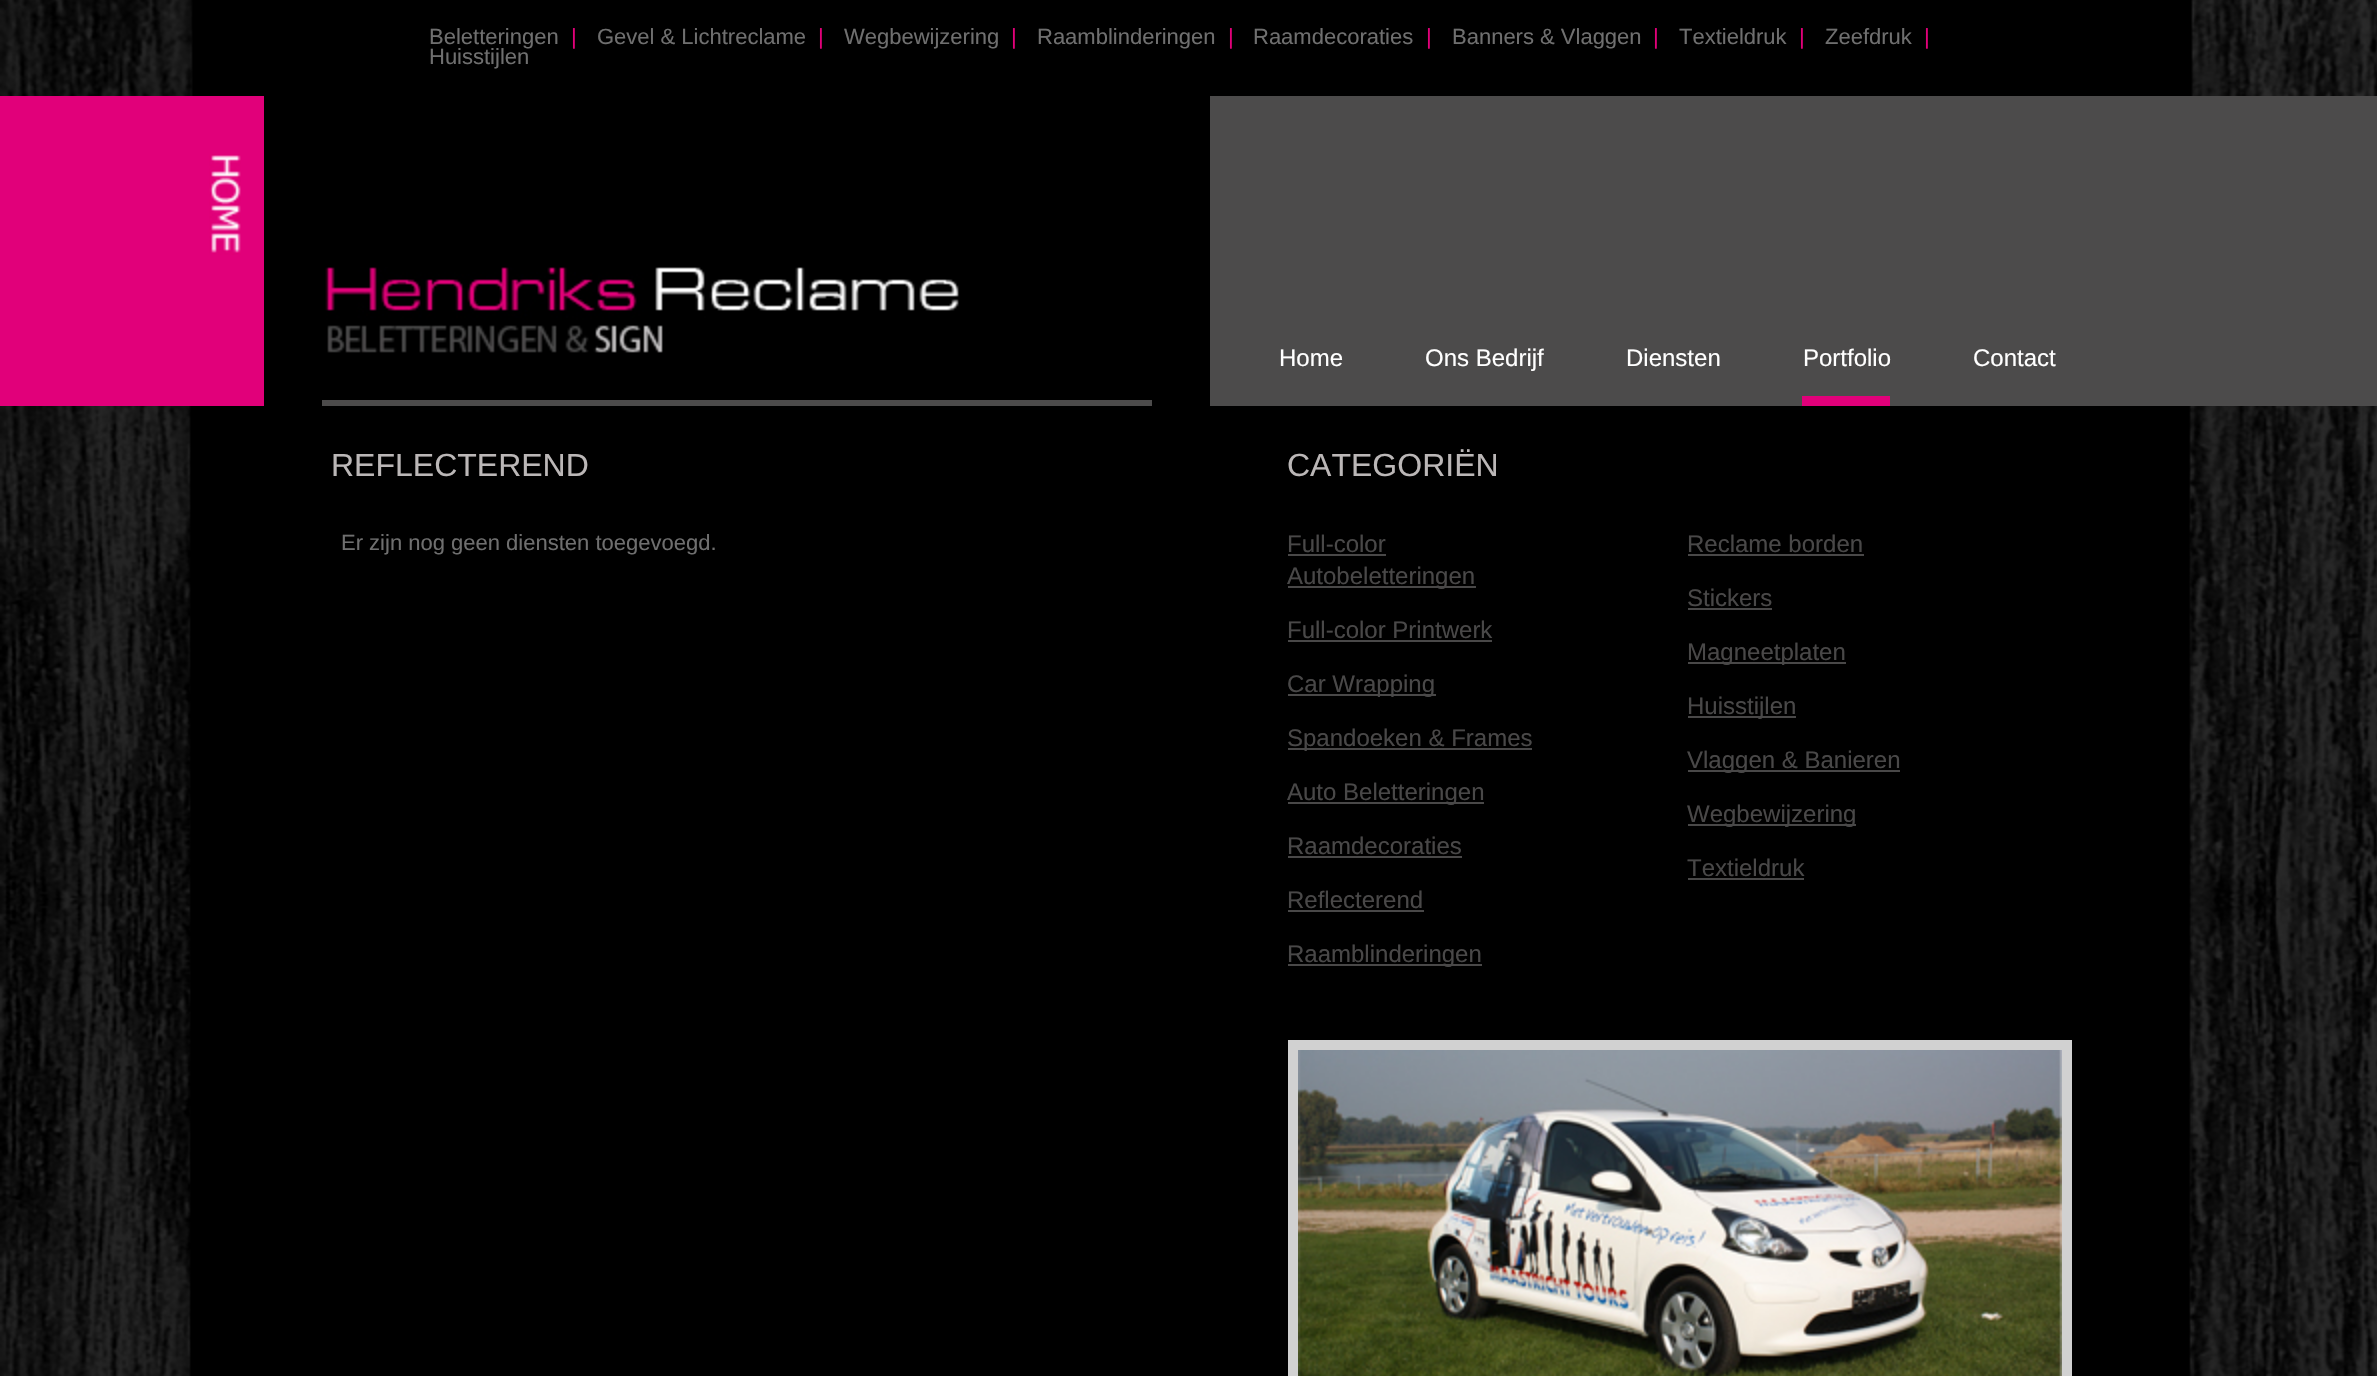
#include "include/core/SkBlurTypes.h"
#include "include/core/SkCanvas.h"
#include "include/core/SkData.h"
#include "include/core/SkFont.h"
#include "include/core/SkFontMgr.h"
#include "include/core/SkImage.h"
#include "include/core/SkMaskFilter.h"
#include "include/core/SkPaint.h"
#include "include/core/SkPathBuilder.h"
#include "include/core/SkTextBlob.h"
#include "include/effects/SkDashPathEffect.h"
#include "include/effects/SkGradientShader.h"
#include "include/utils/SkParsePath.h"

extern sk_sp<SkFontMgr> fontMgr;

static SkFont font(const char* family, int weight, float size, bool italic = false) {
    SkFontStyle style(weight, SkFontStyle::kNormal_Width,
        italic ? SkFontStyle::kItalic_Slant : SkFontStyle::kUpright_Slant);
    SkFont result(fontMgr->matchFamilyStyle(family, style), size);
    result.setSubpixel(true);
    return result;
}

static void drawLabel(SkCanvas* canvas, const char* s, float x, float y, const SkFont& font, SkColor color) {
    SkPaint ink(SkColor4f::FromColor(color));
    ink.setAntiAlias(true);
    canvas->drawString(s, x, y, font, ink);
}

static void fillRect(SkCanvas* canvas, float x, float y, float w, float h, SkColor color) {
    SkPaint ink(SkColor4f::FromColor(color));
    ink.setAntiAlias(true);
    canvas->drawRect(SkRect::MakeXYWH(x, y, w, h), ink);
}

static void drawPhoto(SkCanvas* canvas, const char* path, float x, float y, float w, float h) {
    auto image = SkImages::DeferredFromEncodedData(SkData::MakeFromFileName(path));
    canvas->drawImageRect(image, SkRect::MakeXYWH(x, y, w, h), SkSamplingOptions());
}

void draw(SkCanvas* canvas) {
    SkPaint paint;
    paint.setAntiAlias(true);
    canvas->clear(0xFFFFFFFF);
    drawPhoto(canvas, "assets/img1.png", 0, 0, 2377, 1376);
    drawPhoto(canvas, "assets/img2.png", 191, 0, 2002, 96);
    SkFont font1 = font("Liberation Sans", 400, 22);
    drawLabel(canvas, "Beletteringen", 429, 44, font1, 0xFF6F6F6F);
    drawLabel(canvas, "|", 571, 44, font1, 0xFFE10079);
    drawLabel(canvas, "Gevel & Lichtreclame", 597, 44, font1, 0xFF6F6F6F);
    drawLabel(canvas, "|", 818, 44, font1, 0xFFE10079);
    drawLabel(canvas, "Wegbewijzering", 844, 44, font1, 0xFF6F6F6F);
    drawLabel(canvas, "|", 1011, 44, font1, 0xFFE10079);
    drawLabel(canvas, "Raamblinderingen", 1037, 44, font1, 0xFF6F6F6F);
    drawLabel(canvas, "|", 1228, 44, font1, 0xFFE10079);
    drawLabel(canvas, "Raamdecoraties", 1253, 44, font1, 0xFF6F6F6F);
    drawLabel(canvas, "|", 1426, 44, font1, 0xFFE10079);
    drawLabel(canvas, "Banners & Vlaggen", 1452, 44, font1, 0xFF6F6F6F);
    drawLabel(canvas, "|", 1653, 44, font1, 0xFFE10079);
    drawLabel(canvas, "Textieldruk", 1679, 44, font1, 0xFF6F6F6F);
    drawLabel(canvas, "|", 1799, 44, font1, 0xFFE10079);
    drawLabel(canvas, "Zeefdruk", 1825, 44, font1, 0xFF6F6F6F);
    drawLabel(canvas, "|", 1924, 44, font1, 0xFFE10079);
    drawLabel(canvas, "Huisstijlen", 429, 64, font1, 0xFF6F6F6F);
    fillRect(canvas, 0, 96, 264, 310, 0xFFE1007A);
    fillRect(canvas, 1210, 96, 1167, 310, 0xFF4C4B4B);
    drawPhoto(canvas, "assets/img3.png", 209, 154, 32, 101);
    fillRect(canvas, 264, 96, 946, 310, 0xFF000000);
    drawPhoto(canvas, "assets/img4.png", 325, 267, 634, 86);
    fillRect(canvas, 322, 400, 830, 6, 0xFF4C4B4B);
    SkFont font2 = font("Liberation Sans", 400, 24);
    drawLabel(canvas, "Home", 1279, 366, font2, 0xFFFFFFFF);
    drawLabel(canvas, "Ons Bedrijf", 1425, 366, font2, 0xFFFFFFFF);
    drawLabel(canvas, "Diensten", 1626, 366, font2, 0xFFFFFFFF);
    fillRect(canvas, 1802, 396, 88, 10, 0xFFE1007A);
    drawLabel(canvas, "Portfolio", 1803, 366, font2, 0xFFFFFFFF);
    drawLabel(canvas, "Contact", 1973, 366, font2, 0xFFFFFFFF);
    drawPhoto(canvas, "assets/img5.png", 189, 406, 2004, 970);
    SkFont font3 = font("Liberation Sans", 400, 32);
    drawLabel(canvas, "REFLECTEREND", 331, 476, font3, 0xFFBBB7B7);
    drawLabel(canvas, "Er zijn nog geen diensten toegevoegd.", 341, 550, font1, 0xFF6F6F6F);
    drawLabel(canvas, "CATEGORIËN", 1287, 476, font3, 0xFFBBB7B7);
    drawLabel(canvas, "Full-color", 1287, 552, font2, 0xFF494848);
    fillRect(canvas, 1288, 554, 98, 2, 0xFF494848);
    fillRect(canvas, 1288, 586, 188, 2, 0xFF494848);
    drawLabel(canvas, "Autobeletteringen", 1287, 584, font2, 0xFF494848);
    drawLabel(canvas, "Full-color Printwerk", 1287, 638, font2, 0xFF494848);
    fillRect(canvas, 1288, 640, 204, 2, 0xFF494848);
    fillRect(canvas, 1288, 694, 148, 2, 0xFF494848);
    drawLabel(canvas, "Car Wrapping", 1287, 692, font2, 0xFF494848);
    fillRect(canvas, 1288, 748, 244, 2, 0xFF494848);
    drawLabel(canvas, "Spandoeken & Frames", 1287, 746, font2, 0xFF494848);
    fillRect(canvas, 1288, 802, 196, 2, 0xFF494848);
    drawLabel(canvas, "Auto Beletteringen", 1287, 800, font2, 0xFF494848);
    drawLabel(canvas, "Raamdecoraties", 1287, 854, font2, 0xFF494848);
    fillRect(canvas, 1288, 856, 174, 2, 0xFF494848);
    drawLabel(canvas, "Reflecterend", 1287, 908, font2, 0xFF494848);
    fillRect(canvas, 1288, 910, 136, 2, 0xFF494848);
    fillRect(canvas, 1288, 964, 194, 2, 0xFF494848);
    drawLabel(canvas, "Raamblinderingen", 1287, 962, font2, 0xFF494848);
    drawLabel(canvas, "Reclame borden", 1687, 552, font2, 0xFF494848);
    fillRect(canvas, 1688, 554, 176, 2, 0xFF494848);
    drawLabel(canvas, "Stickers", 1687, 606, font2, 0xFF494848);
    fillRect(canvas, 1688, 608, 84, 2, 0xFF494848);
    fillRect(canvas, 1688, 662, 158, 2, 0xFF494848);
    drawLabel(canvas, "Magneetplaten", 1687, 660, font2, 0xFF494848);
    fillRect(canvas, 1688, 716, 108, 2, 0xFF494848);
    drawLabel(canvas, "Huisstijlen", 1687, 714, font2, 0xFF494848);
    fillRect(canvas, 1688, 770, 212, 2, 0xFF494848);
    drawLabel(canvas, "Vlaggen & Banieren", 1687, 768, font2, 0xFF494848);
    fillRect(canvas, 1688, 824, 168, 2, 0xFF494848);
    drawLabel(canvas, "Wegbewijzering", 1687, 822, font2, 0xFF494848);
    drawLabel(canvas, "Textieldruk", 1687, 876, font2, 0xFF494848);
    fillRect(canvas, 1688, 878, 116, 2, 0xFF494848);
    paint.setStroke(true);
    paint.setStrokeWidth(10);
    paint.setColor(0xFFD1D1D1);
    canvas->drawRect(SkRect::MakeXYWH(1293, 1045, 774, 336), paint);
    drawPhoto(canvas, "assets/img6.png", 1298, 1050, 764, 326);
}
